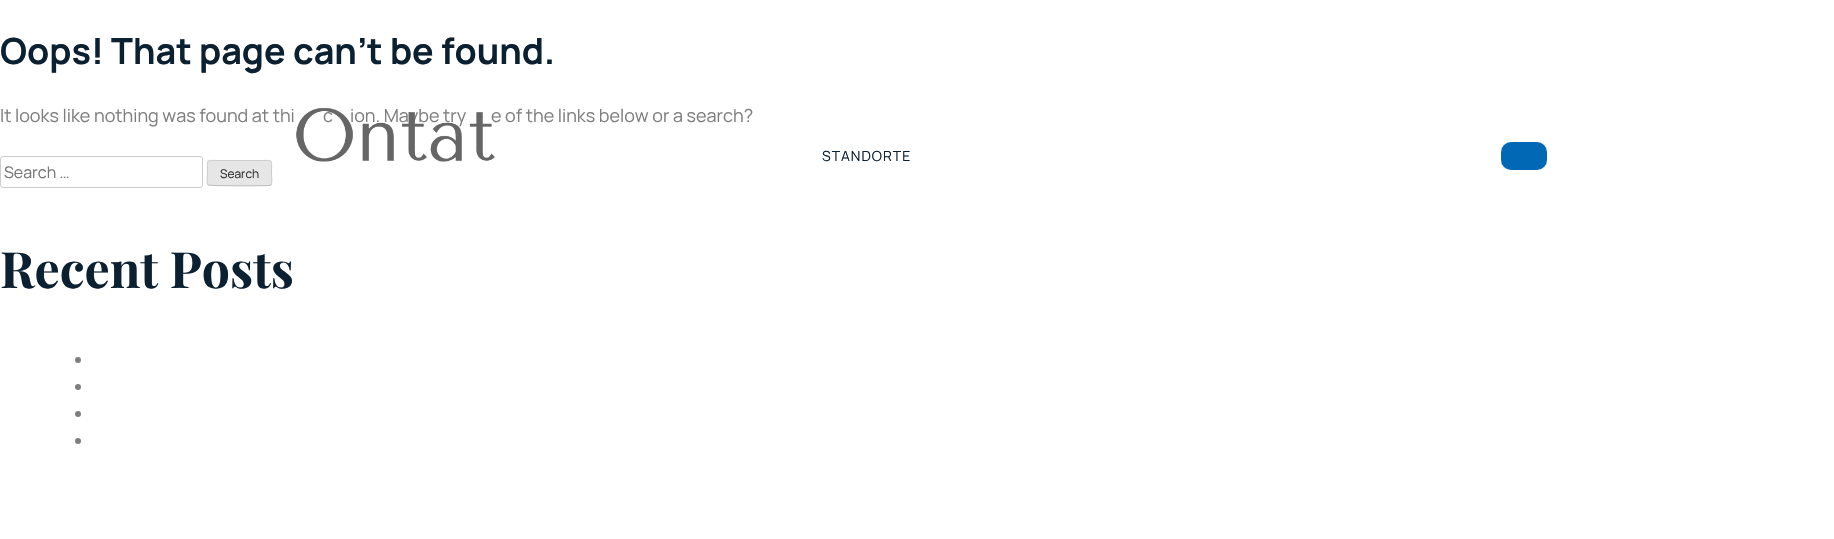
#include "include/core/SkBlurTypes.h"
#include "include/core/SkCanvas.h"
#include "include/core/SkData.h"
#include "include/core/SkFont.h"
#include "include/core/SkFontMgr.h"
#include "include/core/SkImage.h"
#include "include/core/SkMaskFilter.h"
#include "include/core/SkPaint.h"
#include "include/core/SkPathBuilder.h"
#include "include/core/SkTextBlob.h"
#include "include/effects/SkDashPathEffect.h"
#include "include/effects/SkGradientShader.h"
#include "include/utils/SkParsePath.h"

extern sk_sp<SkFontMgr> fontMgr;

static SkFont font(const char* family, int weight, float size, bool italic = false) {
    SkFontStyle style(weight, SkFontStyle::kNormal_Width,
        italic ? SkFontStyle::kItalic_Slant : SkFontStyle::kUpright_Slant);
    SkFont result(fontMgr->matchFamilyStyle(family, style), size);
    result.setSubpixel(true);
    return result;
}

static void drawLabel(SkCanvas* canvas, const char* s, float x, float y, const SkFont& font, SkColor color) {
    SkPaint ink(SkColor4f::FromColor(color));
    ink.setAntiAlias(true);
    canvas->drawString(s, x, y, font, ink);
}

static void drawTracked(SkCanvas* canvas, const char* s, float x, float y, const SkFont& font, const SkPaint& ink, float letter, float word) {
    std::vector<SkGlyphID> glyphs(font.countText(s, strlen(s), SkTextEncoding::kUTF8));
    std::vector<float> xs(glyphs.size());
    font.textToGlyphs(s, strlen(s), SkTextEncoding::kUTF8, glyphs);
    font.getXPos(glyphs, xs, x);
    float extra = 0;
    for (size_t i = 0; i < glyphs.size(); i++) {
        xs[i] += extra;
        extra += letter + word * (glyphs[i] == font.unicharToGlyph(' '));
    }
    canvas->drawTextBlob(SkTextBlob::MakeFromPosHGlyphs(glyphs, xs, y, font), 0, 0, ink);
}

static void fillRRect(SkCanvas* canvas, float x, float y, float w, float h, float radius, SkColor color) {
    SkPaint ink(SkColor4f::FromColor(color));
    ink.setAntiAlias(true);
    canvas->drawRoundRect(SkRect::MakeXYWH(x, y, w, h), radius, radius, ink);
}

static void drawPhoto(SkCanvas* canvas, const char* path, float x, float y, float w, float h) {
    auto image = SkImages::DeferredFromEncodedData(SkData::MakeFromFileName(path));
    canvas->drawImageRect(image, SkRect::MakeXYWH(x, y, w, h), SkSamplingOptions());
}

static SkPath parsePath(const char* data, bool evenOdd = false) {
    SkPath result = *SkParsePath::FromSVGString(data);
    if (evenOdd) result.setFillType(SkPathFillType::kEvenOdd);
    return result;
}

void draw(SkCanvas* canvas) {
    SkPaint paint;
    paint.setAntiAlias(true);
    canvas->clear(0xFFFFFFFF);
    SkFont font1 = font("Manrope", 700, 36);
    drawLabel(canvas, "Oops! That page can’t be found.", 0, 64, font1, 0xFF0B2031);
    SkFont font2 = font("Manrope", 400, 18);
    drawLabel(canvas, "It looks like nothing was found at thi", 0, 122, font2, 0xFF7F7E7F);
    drawLabel(canvas, "c", 323, 122, font2, 0xFF7F7E7F);
    drawLabel(canvas, "ion. Maybe try", 350, 122, font2, 0xFF7F7E7F);
    drawLabel(canvas, "e of the links below or a search?", 491, 122, font2, 0xFF7F7E7F);
    paint.setStroke(true);
    paint.setStrokeWidth(1);
    paint.setColor(0xFFCCCCCC);
    canvas->drawRoundRect(SkRect::MakeXYWH(0.5f, 156.5f, 202, 31), 2.5f, 2.5f, paint);
    SkFont font3 = font("Manrope", 400, 16);
    drawLabel(canvas, "Search …", 4, 178, font3, 0xFF757575);
    fillRRect(canvas, 207, 160, 65, 26, 3, 0xFFE6E6E6);
    paint.setColor(0xFFBBBBBB);
    canvas->drawPath(parsePath("M271 185L269 185.5C264 186 209.5 186 208.5 185H208"), paint);
    paint.setColor(0xFFCCCCCC);
    canvas->drawPath(parsePath("M208 185C206.5 183 207.5 175.5 207.5 173C207.5 158.5 205 160.5 220 160.5H259C274 160.5 271.5 158.5 271.5 173C271.5 175.5 272.5 183 271 185"), paint);
    SkFont font4 = font("Manrope", 400, 12);
    drawLabel(canvas, "Search", 220, 178, font4, 0xFF2E2E2E);
    SkFont font5 = font("Playfair Display", 700, 50);
    drawLabel(canvas, "Recent Posts", 0, 288, font5, 0xFF0B2031);
    paint.setStroke(false);
    paint.setColor(0xFF7F7E7F);
    canvas->drawCircle(78, 360, 3, paint);
    canvas->drawCircle(78, 387, 3, paint);
    canvas->drawCircle(78, 414, 3, paint);
    canvas->drawCircle(78, 441, 3, paint);
    drawPhoto(canvas, "assets/img1.png", 296, 108, 199, 54);
    SkFont font6 = font("Manrope", 400, 14);
    paint.setColor(0xFF0B2031);
    drawTracked(canvas, "STANDORTE", 822, 161, font6, paint, 1, 0);
    fillRRect(canvas, 1501, 142, 46, 28, 10, 0xFF0068B5);
}
